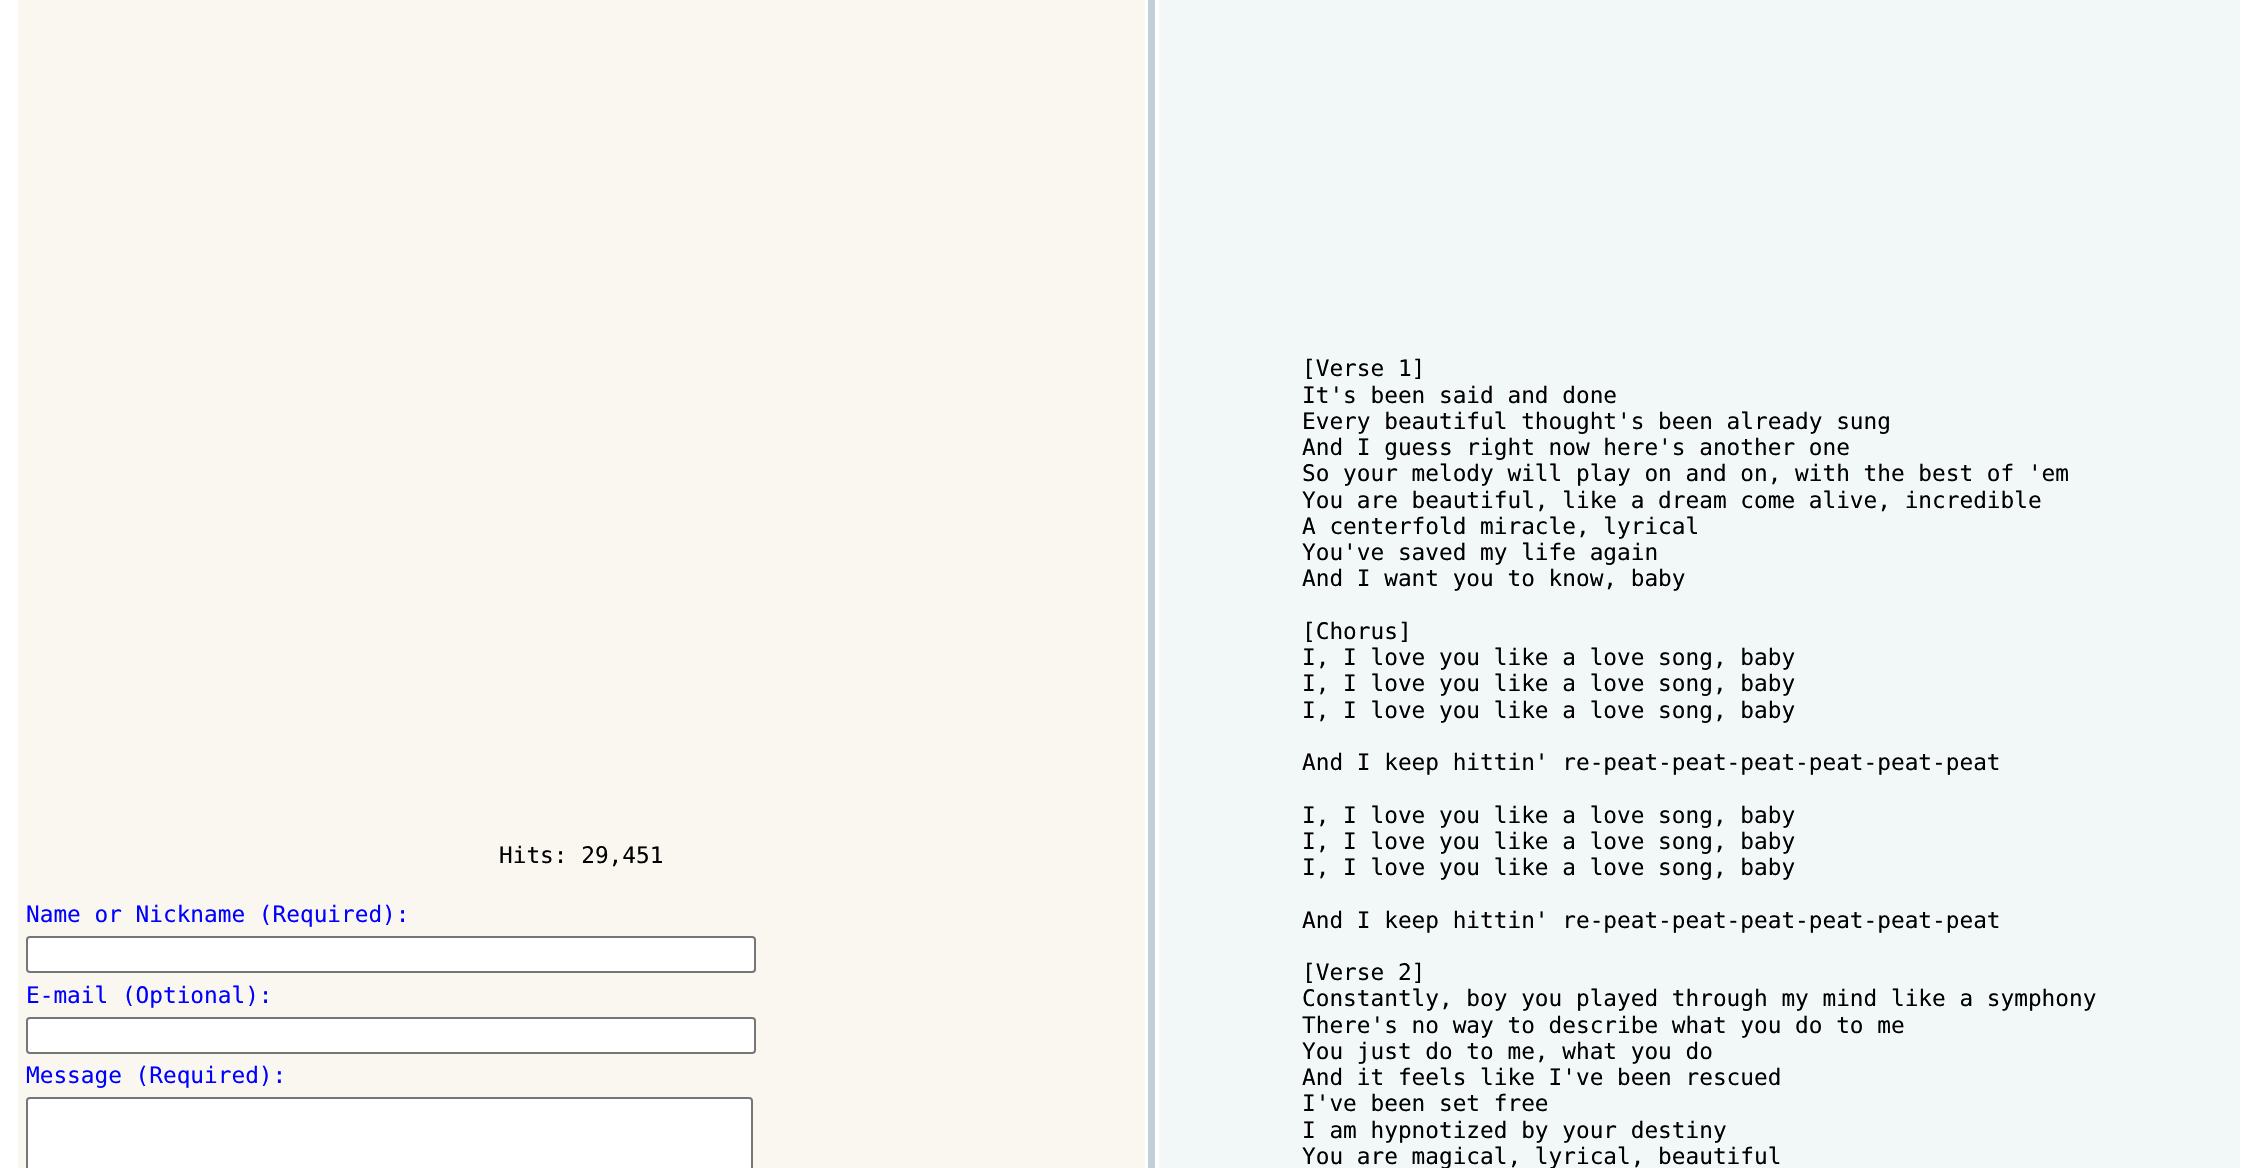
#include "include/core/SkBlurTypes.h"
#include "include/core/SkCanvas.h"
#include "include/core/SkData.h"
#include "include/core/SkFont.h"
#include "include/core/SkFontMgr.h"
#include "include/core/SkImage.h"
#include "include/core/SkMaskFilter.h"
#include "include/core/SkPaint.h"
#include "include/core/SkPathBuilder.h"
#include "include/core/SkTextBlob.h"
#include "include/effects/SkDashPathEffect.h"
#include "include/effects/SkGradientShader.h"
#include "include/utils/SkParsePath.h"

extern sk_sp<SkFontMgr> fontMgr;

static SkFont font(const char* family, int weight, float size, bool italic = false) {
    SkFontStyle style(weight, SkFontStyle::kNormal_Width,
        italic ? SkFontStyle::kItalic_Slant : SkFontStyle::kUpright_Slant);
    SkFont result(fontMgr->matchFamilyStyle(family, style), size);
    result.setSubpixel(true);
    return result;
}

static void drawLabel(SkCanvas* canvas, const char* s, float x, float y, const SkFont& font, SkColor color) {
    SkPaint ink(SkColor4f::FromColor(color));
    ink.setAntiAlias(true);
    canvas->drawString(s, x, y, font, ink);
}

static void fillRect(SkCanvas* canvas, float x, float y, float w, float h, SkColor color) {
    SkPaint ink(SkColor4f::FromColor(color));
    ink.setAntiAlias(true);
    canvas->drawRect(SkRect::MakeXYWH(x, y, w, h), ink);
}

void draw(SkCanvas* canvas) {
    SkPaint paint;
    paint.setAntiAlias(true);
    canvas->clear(0xFFFFFFFF);
    fillRect(canvas, 18, 0, 1127, 1168, 0xFFFAF7F1);
    SkFont font1 = font("DejaVu Sans Mono", 400, 22.75f);
    drawLabel(canvas, "Hits: 29,451", 499, 863, font1, 0xFF000000);
    drawLabel(canvas, "Name or Nickname (Required):", 26, 922, font1, 0xFF0000FF);
    paint.setColor(0xFFFFFFFF);
    canvas->drawRoundRect(SkRect::MakeXYWH(27, 937, 728, 35), 3, 3, paint);
    paint.setStroke(true);
    paint.setStrokeWidth(2);
    paint.setColor(0xFF767676);
    canvas->drawRoundRect(SkRect::MakeXYWH(27, 937, 728, 35), 3, 3, paint);
    drawLabel(canvas, "E-mail (Optional):", 26, 1003, font1, 0xFF0000FF);
    paint.setStroke(false);
    paint.setColor(0xFFFFFFFF);
    canvas->drawRoundRect(SkRect::MakeXYWH(27, 1018, 728, 35), 3, 3, paint);
    paint.setStroke(true);
    paint.setColor(0xFF767676);
    canvas->drawRoundRect(SkRect::MakeXYWH(27, 1018, 728, 35), 3, 3, paint);
    drawLabel(canvas, "Message (Required):", 26, 1083, font1, 0xFF0000FF);
    paint.setStroke(false);
    paint.setColor(0xFFFFFFFF);
    canvas->drawRoundRect(SkRect::MakeXYWH(27, 1098, 725, 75), 3, 3, paint);
    paint.setStroke(true);
    paint.setColor(0xFF767676);
    canvas->drawRoundRect(SkRect::MakeXYWH(27, 1098, 725, 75), 3, 3, paint);
    fillRect(canvas, 1148, 0, 7, 1168, 0xFFC1CFD8);
    fillRect(canvas, 1159, 0, 1081, 1168, 0xFFF2F7F8);
    drawLabel(canvas, "[Verse 1]", 1302, 376, font1, 0xFF000000);
    drawLabel(canvas, "It's been said and done", 1302, 403, font1, 0xFF000000);
    drawLabel(canvas, "Every beautiful thought's been already sung", 1302, 429, font1, 0xFF000000);
    drawLabel(canvas, "And I guess right now here's another one", 1302, 455, font1, 0xFF000000);
    drawLabel(canvas, "So your melody will play on and on, with the best of 'em", 1302, 481, font1, 0xFF000000);
    drawLabel(canvas, "You are beautiful, like a dream come alive, incredible", 1302, 508, font1, 0xFF000000);
    drawLabel(canvas, "A centerfold miracle, lyrical", 1302, 534, font1, 0xFF000000);
    drawLabel(canvas, "You've saved my life again", 1302, 560, font1, 0xFF000000);
    drawLabel(canvas, "And I want you to know, baby", 1302, 586, font1, 0xFF000000);
    drawLabel(canvas, "[Chorus]", 1302, 639, font1, 0xFF000000);
    drawLabel(canvas, "I, I love you like a love song, baby", 1302, 665, font1, 0xFF000000);
    drawLabel(canvas, "I, I love you like a love song, baby", 1302, 691, font1, 0xFF000000);
    drawLabel(canvas, "I, I love you like a love song, baby", 1302, 718, font1, 0xFF000000);
    drawLabel(canvas, "And I keep hittin' re-peat-peat-peat-peat-peat-peat", 1302, 770, font1, 0xFF000000);
    drawLabel(canvas, "I, I love you like a love song, baby", 1302, 823, font1, 0xFF000000);
    drawLabel(canvas, "I, I love you like a love song, baby", 1302, 849, font1, 0xFF000000);
    drawLabel(canvas, "I, I love you like a love song, baby", 1302, 875, font1, 0xFF000000);
    drawLabel(canvas, "And I keep hittin' re-peat-peat-peat-peat-peat-peat", 1302, 928, font1, 0xFF000000);
    drawLabel(canvas, "[Verse 2]", 1302, 980, font1, 0xFF000000);
    drawLabel(canvas, "Constantly, boy you played through my mind like a symphony", 1302, 1006, font1, 0xFF000000);
    drawLabel(canvas, "There's no way to describe what you do to me", 1302, 1033, font1, 0xFF000000);
    drawLabel(canvas, "You just do to me, what you do", 1302, 1059, font1, 0xFF000000);
    drawLabel(canvas, "And it feels like I've been rescued", 1302, 1085, font1, 0xFF000000);
    drawLabel(canvas, "I've been set free", 1302, 1111, font1, 0xFF000000);
    drawLabel(canvas, "I am hypnotized by your destiny", 1302, 1138, font1, 0xFF000000);
    drawLabel(canvas, "You are magical, lyrical, beautiful", 1302, 1164, font1, 0xFF000000);
}
